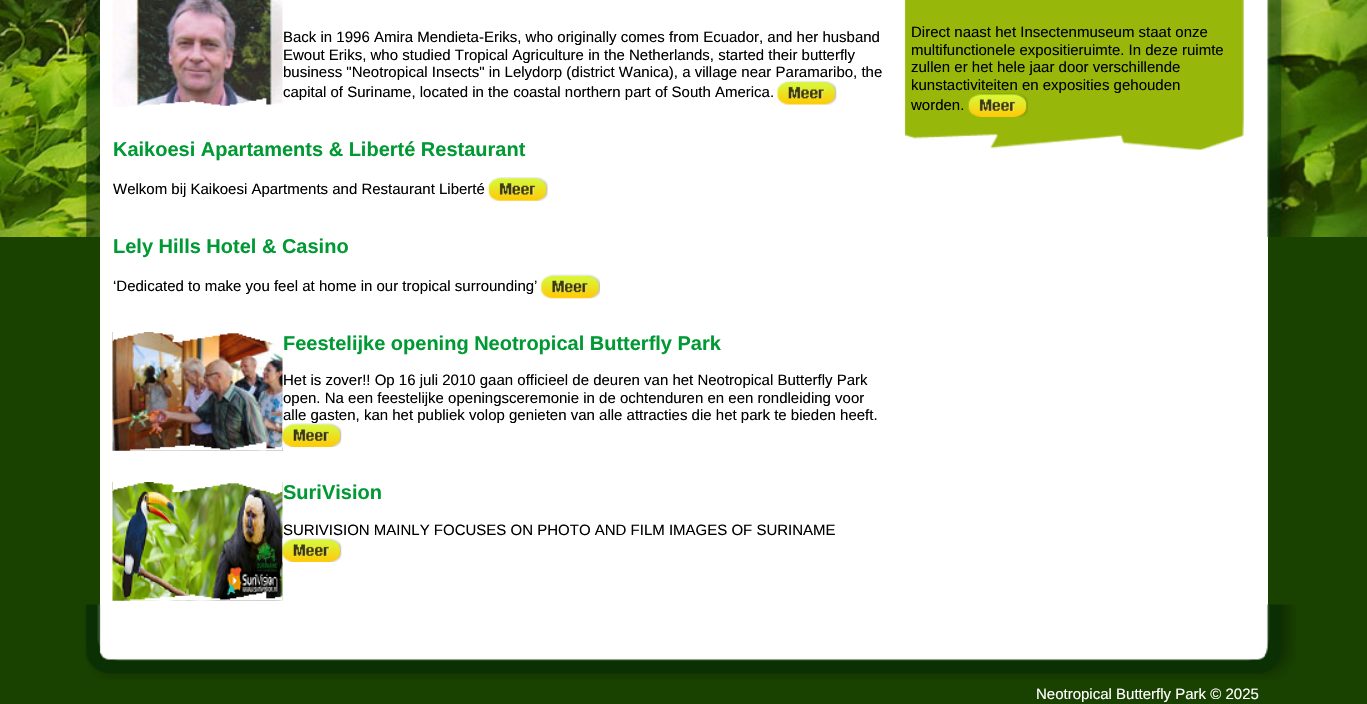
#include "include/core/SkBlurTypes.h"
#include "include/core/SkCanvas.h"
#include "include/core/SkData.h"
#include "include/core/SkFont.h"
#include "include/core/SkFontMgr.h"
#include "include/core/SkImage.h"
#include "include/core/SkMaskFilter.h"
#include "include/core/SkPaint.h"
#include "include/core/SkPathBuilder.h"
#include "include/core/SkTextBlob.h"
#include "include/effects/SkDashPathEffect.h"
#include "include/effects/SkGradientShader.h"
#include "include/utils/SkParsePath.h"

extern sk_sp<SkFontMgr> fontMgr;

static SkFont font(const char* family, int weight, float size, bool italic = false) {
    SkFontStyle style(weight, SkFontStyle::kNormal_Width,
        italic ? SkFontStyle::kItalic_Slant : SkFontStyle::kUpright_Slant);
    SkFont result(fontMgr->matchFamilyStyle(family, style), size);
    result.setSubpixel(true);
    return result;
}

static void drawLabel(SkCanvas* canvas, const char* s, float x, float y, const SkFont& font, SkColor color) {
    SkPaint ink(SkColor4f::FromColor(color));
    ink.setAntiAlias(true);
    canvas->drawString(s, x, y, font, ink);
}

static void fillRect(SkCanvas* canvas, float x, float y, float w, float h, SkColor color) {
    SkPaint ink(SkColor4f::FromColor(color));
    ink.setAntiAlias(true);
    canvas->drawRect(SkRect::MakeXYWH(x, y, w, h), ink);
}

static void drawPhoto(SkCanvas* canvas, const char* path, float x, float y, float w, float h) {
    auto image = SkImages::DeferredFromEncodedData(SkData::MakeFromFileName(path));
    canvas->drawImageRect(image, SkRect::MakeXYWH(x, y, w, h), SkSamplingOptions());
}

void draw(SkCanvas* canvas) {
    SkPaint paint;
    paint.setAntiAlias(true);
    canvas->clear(0xFF194201);
    drawPhoto(canvas, "assets/img1.png", 0, 0, 1367, 237);
    drawPhoto(canvas, "assets/img2.png", 58, 0, 42, 237);
    fillRect(canvas, 100, 0, 1168, 605, 0xFFFFFFFF);
    drawPhoto(canvas, "assets/img3.png", 112, 0, 171, 107);
    drawPhoto(canvas, "assets/img4.png", 130, 0, 152, 107);
    SkFont font1 = font("Liberation Sans", 400, 15);
    drawLabel(canvas, "Back in 1996 Amira Mendieta-Eriks, who originally comes from Ecuador, and her husband", 283, 42, font1, 0xFF000000);
    drawLabel(canvas, "Ewout Eriks, who studied Tropical Agriculture in the Netherlands, started their butterfly", 283, 60, font1, 0xFF000000);
    drawLabel(canvas, "business \"Neotropical Insects\" in Lelydorp (district Wanica), a village near Paramaribo, the", 283, 77, font1, 0xFF000000);
    drawLabel(canvas, "capital of Suriname, located in the coastal northern part of South America.", 283, 97, font1, 0xFF000000);
    drawPhoto(canvas, "assets/img5.png", 777, 80, 60, 25);
    SkFont font2 = font("Liberation Sans", 700, 20);
    drawLabel(canvas, "Kaikoesi Apartaments & Liberté Restaurant", 113, 156, font2, 0xFF009933);
    drawLabel(canvas, "Welkom bij Kaikoesi Apartments and Restaurant Liberté", 113, 194, font1, 0xFF000000);
    drawPhoto(canvas, "assets/img6.png", 488, 177, 60, 24);
    drawLabel(canvas, "Lely Hills Hotel & Casino", 113, 253, font2, 0xFF009933);
    drawLabel(canvas, "‘Dedicated to make you feel at home in our tropical surrounding’", 113, 291, font1, 0xFF000000);
    drawPhoto(canvas, "assets/img7.png", 541, 274, 59, 25);
    drawPhoto(canvas, "assets/img8.png", 112, 332, 171, 119);
    drawPhoto(canvas, "assets/img9.png", 112, 332, 171, 119);
    drawLabel(canvas, "Feestelijke opening Neotropical Butterfly Park", 283, 350, font2, 0xFF009933);
    drawLabel(canvas, "Het is zover!! Op 16 juli 2010 gaan officieel de deuren van het Neotropical Butterfly Park", 283, 385, font1, 0xFF000000);
    drawLabel(canvas, "open. Na een feestelijke openingsceremonie in de ochtenduren en een rondleiding voor", 283, 403, font1, 0xFF000000);
    drawLabel(canvas, "alle gasten, kan het publiek volop genieten van alle attracties die het park te bieden heeft.", 283, 420, font1, 0xFF000000);
    drawPhoto(canvas, "assets/img10.png", 282, 423, 60, 24);
    drawPhoto(canvas, "assets/img11.png", 112, 482, 171, 119);
    drawPhoto(canvas, "assets/img12.png", 112, 482, 171, 119);
    drawLabel(canvas, "SuriVision", 283, 499, font2, 0xFF009933);
    drawLabel(canvas, "SURIVISION MAINLY FOCUSES ON PHOTO AND FILM IMAGES OF SURINAME", 283, 535, font1, 0xFF000000);
    drawPhoto(canvas, "assets/img13.png", 282, 538, 60, 24);
    drawPhoto(canvas, "assets/img14.png", 904, 0, 340, 117);
    drawLabel(canvas, "Direct naast het Insectenmuseum staat onze", 911, 37, font1, 0xFF000000);
    drawLabel(canvas, "multifunctionele expositieruimte. In deze ruimte", 911, 55, font1, 0xFF000000);
    drawLabel(canvas, "zullen er het hele jaar door verschillende", 911, 72, font1, 0xFF000000);
    drawLabel(canvas, "kunstactiviteiten en exposities gehouden", 911, 90, font1, 0xFF000000);
    drawLabel(canvas, "worden.", 911, 110, font1, 0xFF000000);
    drawPhoto(canvas, "assets/img15.png", 968, 93, 60, 24);
    drawPhoto(canvas, "assets/img16.png", 904, 117, 340, 33);
    drawPhoto(canvas, "assets/img17.png", 1267, 0, 42, 237);
    drawPhoto(canvas, "assets/img18.png", 84, 604, 1212, 76);
    drawLabel(canvas, "Neotropical Butterfly Park © 2025", 1036, 699, font1, 0xFFFFFFFF);
}
